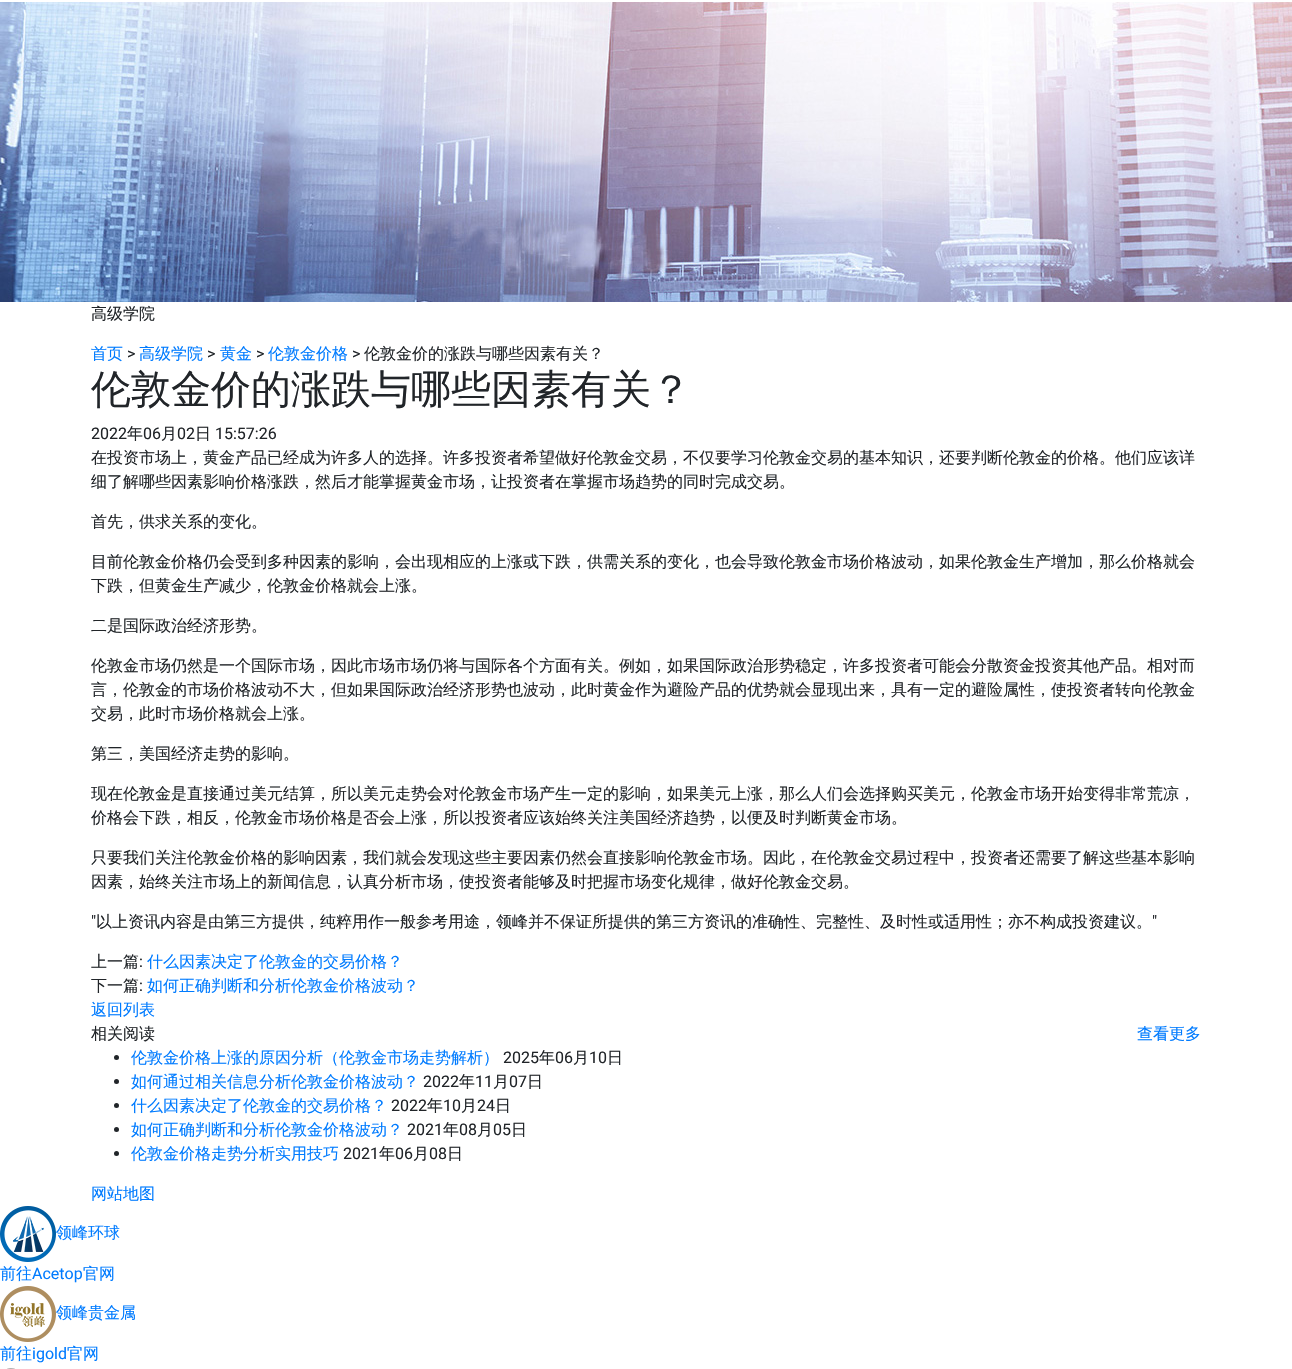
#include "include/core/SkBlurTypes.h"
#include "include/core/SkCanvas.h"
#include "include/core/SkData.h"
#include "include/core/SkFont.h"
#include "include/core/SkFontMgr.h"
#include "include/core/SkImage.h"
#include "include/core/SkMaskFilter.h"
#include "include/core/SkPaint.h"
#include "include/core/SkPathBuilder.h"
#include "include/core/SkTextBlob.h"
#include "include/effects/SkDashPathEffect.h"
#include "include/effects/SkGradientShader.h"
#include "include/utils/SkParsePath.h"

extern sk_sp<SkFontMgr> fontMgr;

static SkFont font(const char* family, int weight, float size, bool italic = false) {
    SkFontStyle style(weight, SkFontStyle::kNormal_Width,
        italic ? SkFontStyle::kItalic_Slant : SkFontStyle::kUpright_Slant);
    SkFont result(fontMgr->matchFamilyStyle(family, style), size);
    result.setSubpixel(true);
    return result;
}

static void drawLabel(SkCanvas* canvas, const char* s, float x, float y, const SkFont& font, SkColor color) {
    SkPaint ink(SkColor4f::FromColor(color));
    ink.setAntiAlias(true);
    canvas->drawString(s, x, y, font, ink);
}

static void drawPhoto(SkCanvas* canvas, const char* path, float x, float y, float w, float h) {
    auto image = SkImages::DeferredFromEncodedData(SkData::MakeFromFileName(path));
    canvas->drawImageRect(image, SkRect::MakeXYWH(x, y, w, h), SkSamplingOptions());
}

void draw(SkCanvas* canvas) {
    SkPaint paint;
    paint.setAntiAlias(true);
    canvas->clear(0xFFFFFFFF);
    drawPhoto(canvas, "assets/img1.png", 0, 2, 1292, 300);
    SkFont font1 = font("WenQuanYi Zen Hei", 500, 16);
    drawLabel(canvas, "高级学院", 91, 319, font1, 0xFF212529);
    drawLabel(canvas, "首页", 91, 359, font1, 0xFF007BFF);
    SkFont font2 = font("Roboto", 400, 16);
    drawLabel(canvas, ">", 127, 359, font2, 0xFF212529);
    drawLabel(canvas, "高级学院", 139, 359, font1, 0xFF007BFF);
    drawLabel(canvas, ">", 207, 359, font2, 0xFF212529);
    drawLabel(canvas, "黄金", 220, 359, font1, 0xFF007BFF);
    drawLabel(canvas, ">", 256, 359, font2, 0xFF212529);
    drawLabel(canvas, "伦敦金价格", 268, 359, font1, 0xFF007BFF);
    drawLabel(canvas, ">", 352, 359, font2, 0xFF212529);
    drawLabel(canvas, "伦敦金价的涨跌与哪些因素有关？", 364, 359, font1, 0xFF212529);
    SkFont font3 = font("WenQuanYi Zen Hei", 500, 40);
    drawLabel(canvas, "伦敦金价的涨跌与哪些因素有关？", 91, 403, font3, 0xFF212529);
    drawLabel(canvas, "2022", 91, 439, font2, 0xFF212529);
    drawLabel(canvas, "年", 127, 439, font1, 0xFF212529);
    drawLabel(canvas, "06", 143, 439, font2, 0xFF212529);
    drawLabel(canvas, "月", 161, 439, font1, 0xFF212529);
    drawLabel(canvas, "02", 177, 439, font2, 0xFF212529);
    drawLabel(canvas, "日", 195, 439, font1, 0xFF212529);
    drawLabel(canvas, "15:57:26", 215, 439, font2, 0xFF212529);
    drawLabel(canvas, "在投资市场上，黄金产品已经成为许多人的选择。许多投资者希望做好伦敦金交易，不仅要学习伦敦金交易的基本知识，还要判断伦敦金的价格。他们应该详", 91, 463, font1, 0xFF212529);
    drawLabel(canvas, "细了解哪些因素影响价格涨跌，然后才能掌握黄金市场，让投资者在掌握市场趋势的同时完成交易。", 91, 487, font1, 0xFF212529);
    drawLabel(canvas, "首先，供求关系的变化。", 91, 527, font1, 0xFF212529);
    drawLabel(canvas, "目前伦敦金价格仍会受到多种因素的影响，会出现相应的上涨或下跌，供需关系的变化，也会导致伦敦金市场价格波动，如果伦敦金生产增加，那么价格就会", 91, 567, font1, 0xFF212529);
    drawLabel(canvas, "下跌，但黄金生产减少，伦敦金价格就会上涨。", 91, 591, font1, 0xFF212529);
    drawLabel(canvas, "二是国际政治经济形势。", 91, 631, font1, 0xFF212529);
    drawLabel(canvas, "伦敦金市场仍然是一个国际市场，因此市场市场仍将与国际各个方面有关。例如，如果国际政治形势稳定，许多投资者可能会分散资金投资其他产品。相对而", 91, 671, font1, 0xFF212529);
    drawLabel(canvas, "言，伦敦金的市场价格波动不大，但如果国际政治经济形势也波动，此时黄金作为避险产品的优势就会显现出来，具有一定的避险属性，使投资者转向伦敦金", 91, 695, font1, 0xFF212529);
    drawLabel(canvas, "交易，此时市场价格就会上涨。", 91, 719, font1, 0xFF212529);
    drawLabel(canvas, "第三，美国经济走势的影响。", 91, 759, font1, 0xFF212529);
    drawLabel(canvas, "现在伦敦金是直接通过美元结算，所以美元走势会对伦敦金市场产生一定的影响，如果美元上涨，那么人们会选择购买美元，伦敦金市场开始变得非常荒凉，", 91, 799, font1, 0xFF212529);
    drawLabel(canvas, "价格会下跌，相反，伦敦金市场价格是否会上涨，所以投资者应该始终关注美国经济趋势，以便及时判断黄金市场。", 91, 823, font1, 0xFF212529);
    drawLabel(canvas, "只要我们关注伦敦金价格的影响因素，我们就会发现这些主要因素仍然会直接影响伦敦金市场。因此，在伦敦金交易过程中，投资者还需要了解这些基本影响", 91, 863, font1, 0xFF212529);
    drawLabel(canvas, "因素，始终关注市场上的新闻信息，认真分析市场，使投资者能够及时把握市场变化规律，做好伦敦金交易。", 91, 887, font1, 0xFF212529);
    drawLabel(canvas, "\"", 91, 927, font2, 0xFF212529);
    drawLabel(canvas, "以上资讯内容是由第三方提供，纯粹用作一般参考用途，领峰并不保证所提供的第三方资讯的准确性、完整性、及时性或适用性；亦不构成投资建议。", 96, 927, font1, 0xFF212529);
    drawLabel(canvas, "\"", 1152, 927, font2, 0xFF212529);
    drawLabel(canvas, "上一篇", 91, 967, font1, 0xFF212529);
    drawLabel(canvas, ":", 139, 967, font2, 0xFF212529);
    drawLabel(canvas, "什么因素决定了伦敦金的交易价格？", 147, 967, font1, 0xFF007BFF);
    drawLabel(canvas, "下一篇", 91, 991, font1, 0xFF212529);
    drawLabel(canvas, ":", 139, 991, font2, 0xFF212529);
    drawLabel(canvas, "如何正确判断和分析伦敦金价格波动？", 147, 991, font1, 0xFF007BFF);
    drawLabel(canvas, "返回列表", 91, 1015, font1, 0xFF007BFF);
    drawLabel(canvas, "相关阅读", 91, 1039, font1, 0xFF212529);
    drawLabel(canvas, "查看更多", 1137, 1039, font1, 0xFF007BFF);
    paint.setColor(0xFF212529);
    canvas->drawCircle(116.5f, 1057.5f, 2.5f, paint);
    drawLabel(canvas, "伦敦金价格上涨的原因分析（伦敦金市场走势解析）", 131, 1063, font1, 0xFF007BFF);
    drawLabel(canvas, "2025", 503, 1063, font2, 0xFF212529);
    drawLabel(canvas, "年", 539, 1063, font1, 0xFF212529);
    drawLabel(canvas, "06", 555, 1063, font2, 0xFF212529);
    drawLabel(canvas, "月", 573, 1063, font1, 0xFF212529);
    drawLabel(canvas, "10", 589, 1063, font2, 0xFF212529);
    drawLabel(canvas, "日", 607, 1063, font1, 0xFF212529);
    canvas->drawCircle(116.5f, 1081.5f, 2.5f, paint);
    drawLabel(canvas, "如何通过相关信息分析伦敦金价格波动？", 131, 1087, font1, 0xFF007BFF);
    drawLabel(canvas, "2022", 423, 1087, font2, 0xFF212529);
    drawLabel(canvas, "年", 459, 1087, font1, 0xFF212529);
    drawLabel(canvas, "11", 475, 1087, font2, 0xFF212529);
    drawLabel(canvas, "月", 493, 1087, font1, 0xFF212529);
    drawLabel(canvas, "07", 509, 1087, font2, 0xFF212529);
    drawLabel(canvas, "日", 527, 1087, font1, 0xFF212529);
    canvas->drawCircle(116.5f, 1105.5f, 2.5f, paint);
    drawLabel(canvas, "什么因素决定了伦敦金的交易价格？", 131, 1111, font1, 0xFF007BFF);
    drawLabel(canvas, "2022", 391, 1111, font2, 0xFF212529);
    drawLabel(canvas, "年", 427, 1111, font1, 0xFF212529);
    drawLabel(canvas, "10", 443, 1111, font2, 0xFF212529);
    drawLabel(canvas, "月", 461, 1111, font1, 0xFF212529);
    drawLabel(canvas, "24", 477, 1111, font2, 0xFF212529);
    drawLabel(canvas, "日", 495, 1111, font1, 0xFF212529);
    canvas->drawCircle(116.5f, 1129.5f, 2.5f, paint);
    drawLabel(canvas, "如何正确判断和分析伦敦金价格波动？", 131, 1135, font1, 0xFF007BFF);
    drawLabel(canvas, "2021", 407, 1135, font2, 0xFF212529);
    drawLabel(canvas, "年", 443, 1135, font1, 0xFF212529);
    drawLabel(canvas, "08", 459, 1135, font2, 0xFF212529);
    drawLabel(canvas, "月", 477, 1135, font1, 0xFF212529);
    drawLabel(canvas, "05", 493, 1135, font2, 0xFF212529);
    drawLabel(canvas, "日", 511, 1135, font1, 0xFF212529);
    canvas->drawCircle(116.5f, 1153.5f, 2.5f, paint);
    drawLabel(canvas, "伦敦金价格走势分析实用技巧", 131, 1159, font1, 0xFF007BFF);
    drawLabel(canvas, "2021", 343, 1159, font2, 0xFF212529);
    drawLabel(canvas, "年", 379, 1159, font1, 0xFF212529);
    drawLabel(canvas, "06", 395, 1159, font2, 0xFF212529);
    drawLabel(canvas, "月", 413, 1159, font1, 0xFF212529);
    drawLabel(canvas, "08", 429, 1159, font2, 0xFF212529);
    drawLabel(canvas, "日", 447, 1159, font1, 0xFF212529);
    drawLabel(canvas, "网站地图", 91, 1199, font1, 0xFF007BFF);
    drawPhoto(canvas, "assets/img2.png", 0, 1206, 56, 56);
    drawLabel(canvas, "领峰环球", 56, 1238, font1, 0xFF007BFF);
    drawLabel(canvas, "前往", 0, 1279, font1, 0xFF007BFF);
    drawLabel(canvas, "Acetop", 32, 1279, font2, 0xFF007BFF);
    drawLabel(canvas, "官网", 83, 1279, font1, 0xFF007BFF);
    drawPhoto(canvas, "assets/img3.png", 0, 1286, 56, 56);
    drawLabel(canvas, "领峰贵金属", 56, 1318, font1, 0xFF007BFF);
    drawLabel(canvas, "前往", 0, 1359, font1, 0xFF007BFF);
    drawLabel(canvas, "igold", 32, 1359, font2, 0xFF007BFF);
    drawLabel(canvas, "官网", 67, 1359, font1, 0xFF007BFF);
    drawPhoto(canvas, "assets/img4.png", 7, 1368, 8, 1);
}
